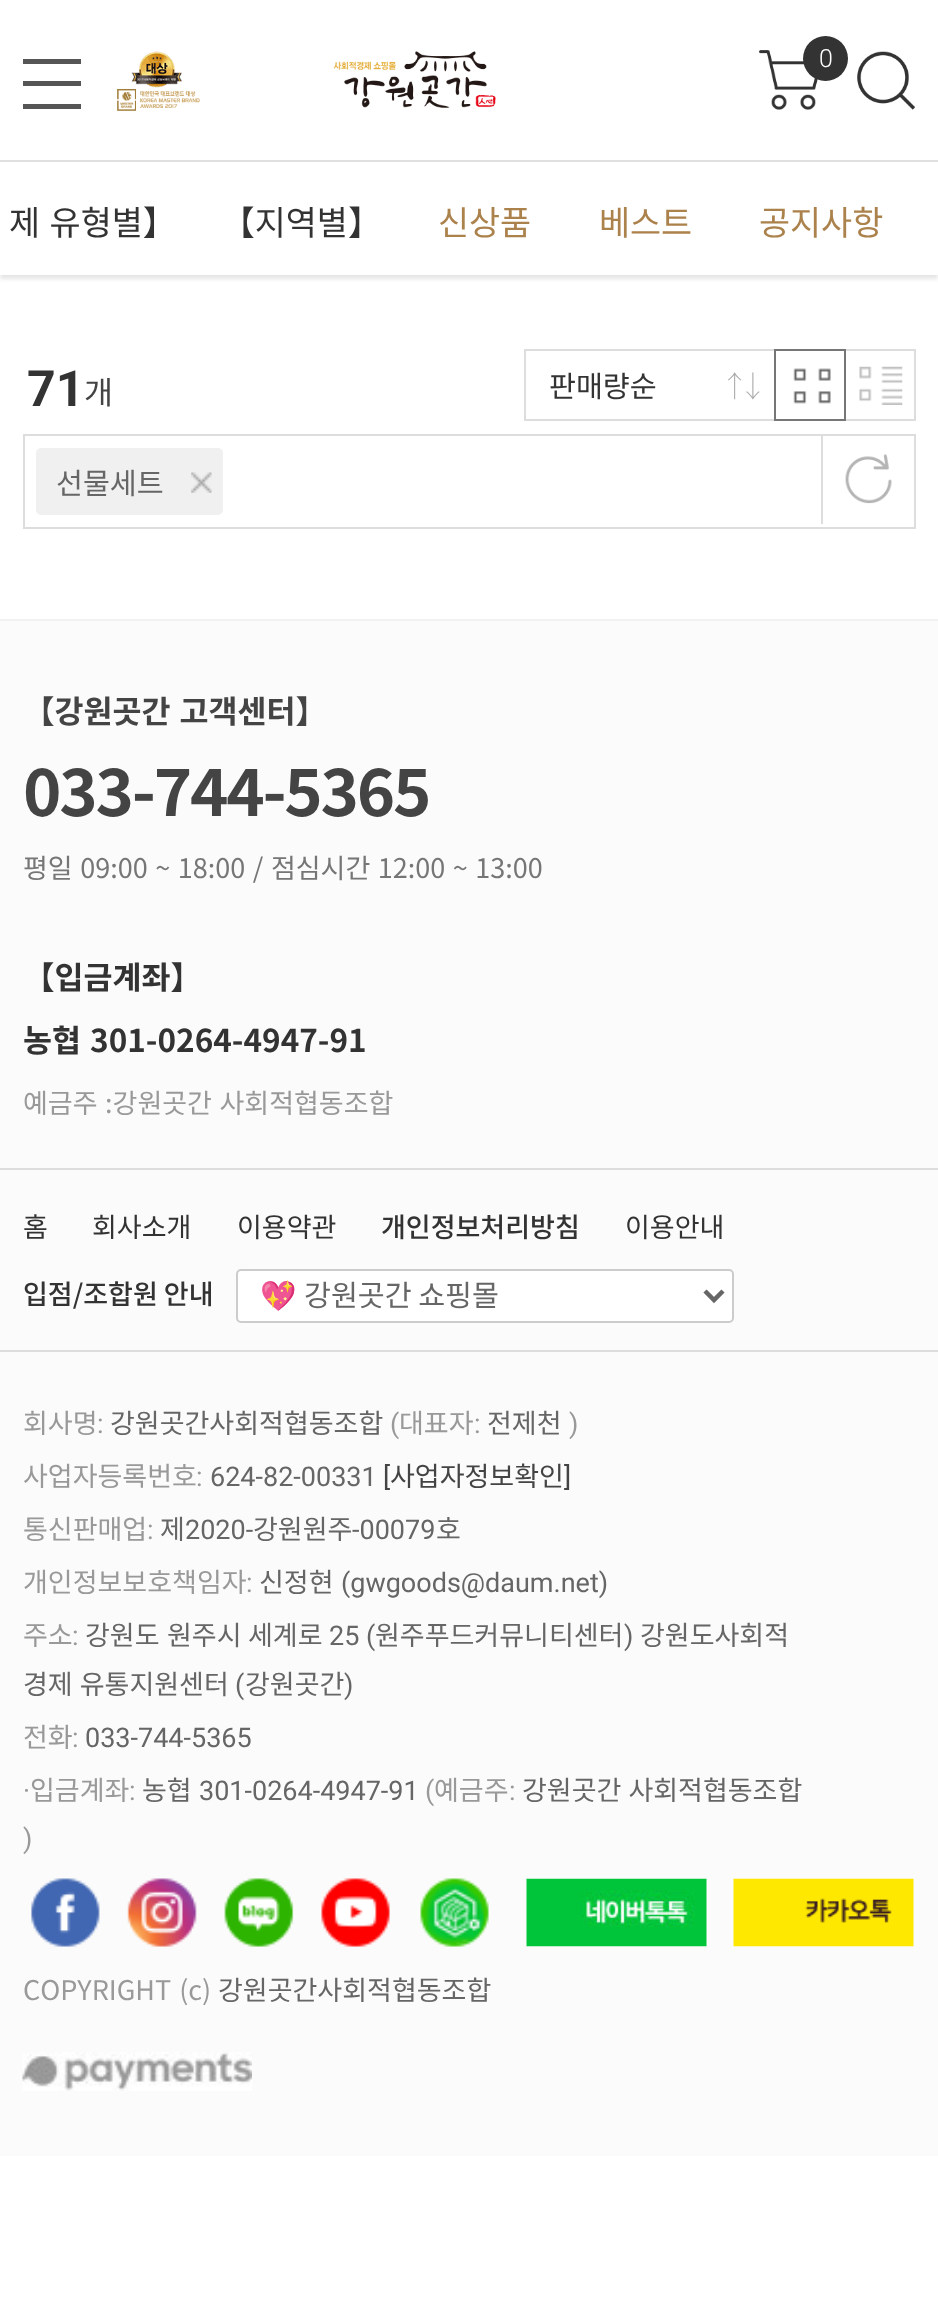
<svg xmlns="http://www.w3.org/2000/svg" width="938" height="2322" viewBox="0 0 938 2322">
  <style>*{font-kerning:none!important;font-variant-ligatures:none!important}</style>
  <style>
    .t1 { font: 300 25px Roboto; fill: #fff; }
    .t2 { font: 33.75px Noto Sans KR; fill: #333; }
    .t3 { font: 33.75px Noto Sans KR; fill: #ac824c; }
    .t4 { font: bold 50px Roboto; fill: #333; }
    .t5 { font: 31.5px Noto Sans KR; fill: #444; }
    .t6 { font: 29.25px Noto Sans KR; fill: #333; }
    .t7 { font: 100 29.25px Noto Sans KR; letter-spacing: -11px; fill: #aaa; }
    .t8 { font: 29.25px Noto Sans KR; fill: #666; }
    .t9 { font: bold 31.5px Noto Sans KR; fill: #444; }
    .t10 { font: bold 65.25px Noto Sans KR; letter-spacing: -2.25px; fill: #444; }
    .t11 { font: 27px Noto Sans KR; fill: #767676; }
    .t12 { font: bold 31.5px Noto Sans KR; fill: #333; }
    .t13 { font: 27px Noto Sans KR; fill: #999; }
    .t14 { font: 27px Noto Sans KR; fill: #333; }
    .t15 { font: 500 27px Noto Sans KR; fill: #333; }
    .t16 { font: 29.25px Noto Color Emoji; fill: #666; }
    .t17 { font: 27px Roboto; fill: #999; }
    .t18 { font: 27px Noto Sans KR; fill: #666; }
    .t19 { font: 27px Roboto; fill: #666; }
    .t20 { font: 27px Roboto; fill: #444; }
    .t21 { font: 27px Noto Sans KR; fill: #444; }
  </style>
  <rect width="100%" height="100%" fill="#fff"/>
  <rect x="0" y="5" width="938" height="274" fill="#0000001a" filter="blur(2px)"/>
  <rect x="0" y="2" width="938" height="273" fill="#fff"/>
  <rect x="23" y="59" width="58" height="5" fill="#555"/>
  <rect x="23" y="81" width="58" height="5" fill="#555"/>
  <rect x="23" y="104" width="58" height="5" fill="#555"/>
  <image x="117" y="51" width="379" height="60" href="images/1.png"/>
  <image x="759" y="50" width="59" height="60" href="images/2.png"/>
  <circle cx="825.5" cy="58.5" r="22.5" fill="#333"/>
  <text x="819" y="67" class="t1">0</text>
  <image x="857" y="51" width="58" height="59" href="images/3.png"/>
  <rect x="0" y="160" width="938" height="2" fill="#e0e0e0"/>
  <text x="9" y="235" word-spacing="2" class="t2">제 유형별】</text>
  <text x="221" y="235" class="t2">【지역별】</text>
  <text x="438" y="235" class="t3">신상품</text>
  <text x="599" y="235" class="t3">베스트</text>
  <text x="759" y="235" class="t3">공지사항</text>
  <rect x="914" y="434" width="2" height="95" fill="#ddd"/>
  <rect x="23" y="527" width="893" height="2" fill="#ddd"/>
  <rect x="23" y="434" width="2" height="95" fill="#ddd"/>
  <rect x="821" y="434" width="2" height="90" fill="#ddd"/>
  <rect x="23" y="434" width="893" height="2" fill="#ddd"/>
  <text x="27" y="406" class="t4">71</text>
  <text x="84" y="404" class="t5">개</text>
  <rect x="524" y="349" width="250" height="2" fill="#ddd"/>
  <rect x="524" y="419" width="250" height="2" fill="#ddd"/>
  <rect x="524" y="349" width="2" height="72" fill="#ddd"/>
  <text x="549" y="397" class="t6">판매량순</text>
  <text x="720" y="397" class="t7">↑↓</text>
  <image x="793" y="368" width="38" height="36" href="images/4.png"/>
  <image x="859" y="366" width="44" height="39" href="images/5.png"/>
  <rect x="845" y="350" width="70" height="70" fill="none" stroke="#ddd" stroke-width="2"/>
  <rect x="775" y="350" width="70" height="70" fill="none" stroke="#767676" stroke-width="2"/>
  <rect x="36" y="448" width="187" height="67" rx="5" fill="#f0f0f0"/>
  <image x="191" y="472" width="21" height="21" href="images/6.png"/>
  <text x="56" y="494" class="t8">선물세트</text>
  <image x="845" y="454" width="47" height="50" href="images/7.png"/>
  <rect x="0" y="621" width="938" height="1535" fill="#fbfbfb"/>
  <rect x="0" y="619" width="938" height="2" fill="#f1f1f1"/>
  <text x="23" y="723" word-spacing="2" class="t9">【강원곳간 고객센터】</text>
  <text x="23" y="816" class="t10">033-744-5365</text>
  <text x="23" y="878" word-spacing="1.5" class="t11">평일 09:00 ~ 18:00 / 점심시간 12:00 ~ 13:00</text>
  <text x="23" y="989" class="t12">【입금계좌】</text>
  <text x="23" y="1052" word-spacing="2" class="t12">농협 301-0264-4947-91</text>
  <text x="23" y="1113" word-spacing="1.5" class="t13">예금주 :강원곳간 사회적협동조합</text>
  <rect x="0" y="1168" width="938" height="2" fill="#ddd"/>
  <rect x="0" y="1350" width="938" height="2" fill="#ddd"/>
  <text x="23" y="1237" class="t14">홈</text>
  <text x="92" y="1237" class="t14">회사소개</text>
  <text x="237" y="1237" class="t14">이용약관</text>
  <text x="381" y="1237" class="t15">개인정보처리방침</text>
  <text x="625" y="1237" class="t14">이용안내</text>
  <text x="23" y="1304" class="t15">입점/조합원 안내</text>
  <rect x="237" y="1270" width="496" height="52" rx="4" fill="#fff" stroke="#ccc" stroke-width="2"/>
  <path d="M705 1291L714 1300L723 1291" fill="none" stroke="#666" stroke-width="4.5"/>
  <text x="260" y="1306" class="t16">💖</text>
  <text x="304" y="1306" class="t8">강원곳간 쇼핑몰</text>
  <text x="23" y="1433" class="t13">회사명</text>
  <text x="97" y="1433" class="t17">:</text>
  <text x="110" y="1433" class="t18">강원곳간사회적협동조합</text>
  <text x="390" y="1433" class="t17">(</text>
  <text x="399" y="1433" class="t13">대표자</text>
  <text x="474" y="1433" class="t17">:</text>
  <text x="487" y="1433" class="t18">전제천</text>
  <text x="569" y="1433" class="t17">)</text>
  <text x="23" y="1486" class="t13">사업자등록번호</text>
  <text x="196" y="1486" class="t17">:</text>
  <text x="210" y="1486" class="t19">624-82-00331</text>
  <text x="383" y="1486" class="t20">[</text>
  <text x="390" y="1486" class="t21">사업자정보확인</text>
  <text x="564" y="1486" class="t20">]</text>
  <text x="23" y="1539" class="t13">통신판매업</text>
  <text x="147" y="1539" class="t17">:</text>
  <text x="160" y="1539" class="t18">제</text>
  <text x="185" y="1539" class="t19">2020-</text>
  <text x="253" y="1539" class="t18">강원원주</text>
  <text x="352" y="1539" class="t19">-00079</text>
  <text x="436" y="1539" class="t18">호</text>
  <text x="23" y="1592" class="t13">개인정보보호책임자</text>
  <text x="246" y="1592" class="t17">:</text>
  <text x="259" y="1592" class="t18">신정현</text>
  <text x="341" y="1592" class="t19">(gwgoods@daum.net)</text>
  <text x="23" y="1645" class="t13">주소</text>
  <text x="72" y="1645" class="t17">:</text>
  <text x="85" y="1645" class="t18">강원도</text>
  <text x="167" y="1645" class="t18">원주시</text>
  <text x="248" y="1645" class="t18">세계로</text>
  <text x="329" y="1645" class="t19">25 (</text>
  <text x="375" y="1645" class="t18">원주푸드커뮤니티센터</text>
  <text x="624" y="1645" class="t19">)</text>
  <text x="640" y="1645" class="t18">강원도사회적</text>
  <text x="23" y="1694" word-spacing="1" class="t18">경제 유통지원센터</text>
  <text x="235" y="1694" class="t19">(</text>
  <text x="245" y="1694" class="t18">강원곳간</text>
  <text x="344" y="1694" class="t19">)</text>
  <text x="23" y="1747" class="t13">전화</text>
  <text x="72" y="1747" class="t17">:</text>
  <text x="85" y="1747" class="t19">033-744-5365</text>
  <text x="23" y="1800" class="t17">·</text>
  <text x="30" y="1800" class="t13">입금계좌</text>
  <text x="129" y="1800" class="t17">:</text>
  <text x="142" y="1800" class="t18">농협</text>
  <text x="199" y="1800" class="t19">301-0264-4947-91</text>
  <text x="425" y="1800" class="t17">(</text>
  <text x="434" y="1800" class="t13">예금주</text>
  <text x="509" y="1800" class="t17">:</text>
  <text x="522" y="1800" word-spacing="1" class="t18">강원곳간 사회적협동조합</text>
  <text x="23" y="1848" class="t17">)</text>
  <image x="31" y="1878" width="69" height="69" href="images/8.png"/>
  <image x="127" y="1878" width="70" height="69" href="images/9.png"/>
  <image x="224" y="1878" width="70" height="69" href="images/10.png"/>
  <image x="321" y="1878" width="69" height="69" href="images/11.png"/>
  <image x="420" y="1878" width="69" height="69" href="images/12.png"/>
  <image x="526" y="1878" width="181" height="69" href="images/13.png"/>
  <image x="733" y="1878" width="181" height="69" href="images/14.png"/>
  <text x="23" y="2000" word-spacing="2" class="t13">COPYRIGHT (c)</text>
  <text x="218" y="2000" class="t18">강원곳간사회적협동조합</text>
  <image x="22" y="2052" width="230" height="39" href="images/15.png"/>
</svg>
